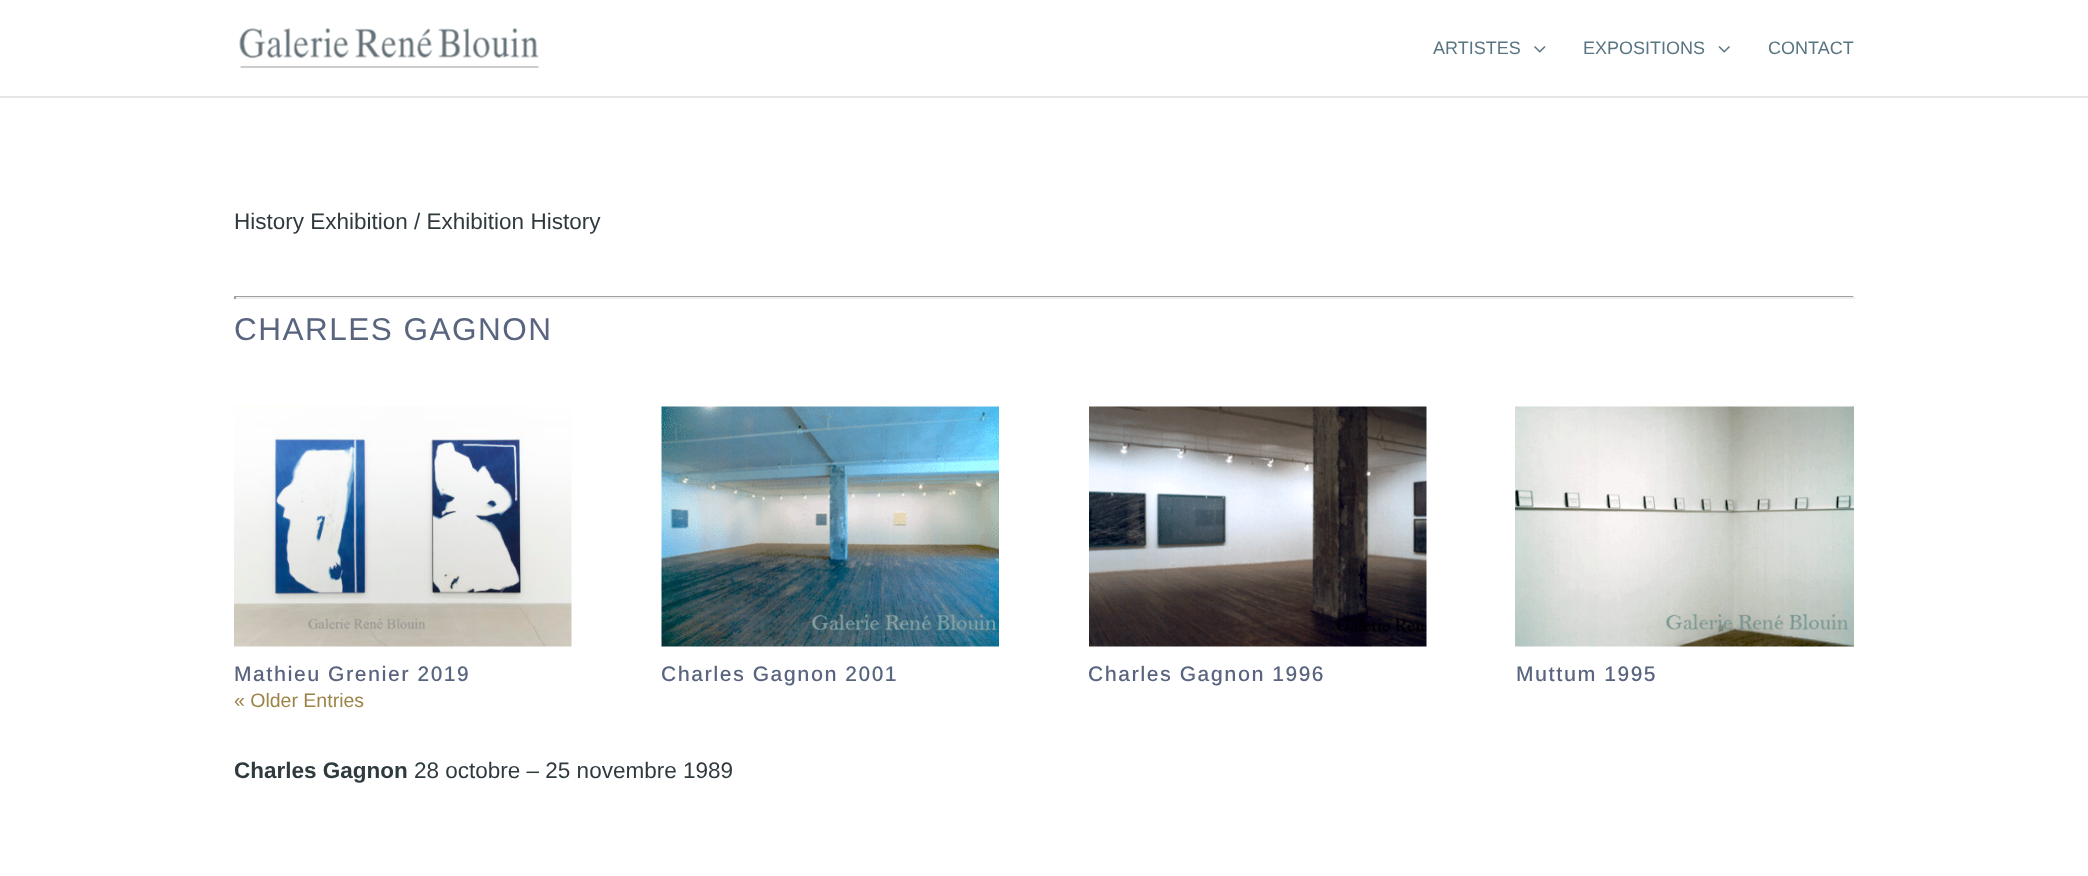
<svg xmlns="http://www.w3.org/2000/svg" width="2088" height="876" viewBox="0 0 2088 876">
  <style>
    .t1 { font: 18px Liberation Sans; fill: #5a7582; }
    .t2 { font: 22.5px Liberation Sans; fill: #2f3a3f; }
    .t3 { font: 31.5px Liberation Sans; letter-spacing: 1.5px; fill: #59657f; }
    .t4 { font: 500 21px Arimo; letter-spacing: 1.5px; fill: #59657f; }
    .t5 { font: 19.5px Liberation Sans; fill: #9c8448; }
    .t6 { font: bold 22.5px Liberation Sans; fill: #2f3a3f; }
  </style>
  <rect width="100%" height="100%" fill="#fff"/>
  <rect x="0" y="96" width="2088" height="2" fill="#e6e6e6"/>
  <image x="239" y="28" width="300" height="40" href="images/1.png"/>
  <text x="1433" y="54" class="t1">ARTISTES</text>
  <image x="1534" y="46" width="12" height="7" href="images/2.png"/>
  <text x="1583" y="54" class="t1">EXPOSITIONS</text>
  <image x="1718" y="46" width="12" height="7" href="images/3.png"/>
  <text x="1768" y="54" class="t1">CONTACT</text>
  <text x="234" y="229" class="t2">History Exhibition / Exhibition History</text>
  <rect x="234" y="296" width="1620" height="1" fill="#9f9f9f"/>
  <rect x="1853" y="296" width="2" height="3" fill="#eee"/>
  <rect x="234" y="297" width="1620" height="2" fill="#eee"/>
  <rect x="234" y="296" width="2" height="3" fill="#9f9f9f"/>
  <text x="234" y="340" class="t3">CHARLES GAGNON</text>
  <image x="234" y="406" width="338" height="241" href="images/4.png"/>
  <text x="234" y="681" class="t4">Mathieu Grenier 2019</text>
  <image x="661" y="406" width="338" height="241" href="images/5.png"/>
  <text x="661" y="681" class="t4">Charles Gagnon 2001</text>
  <image x="1089" y="406" width="338" height="241" href="images/6.png"/>
  <text x="1088" y="681" class="t4">Charles Gagnon 1996</text>
  <image x="1515" y="406" width="339" height="241" href="images/7.png"/>
  <text x="1516" y="681" class="t4">Muttum 1995</text>
  <text x="234" y="707" class="t5">« Older Entries</text>
  <text x="234" y="778" class="t6">Charles Gagnon</text>
  <text x="414" y="778" class="t2">28 octobre – 25 novembre 1989</text>
</svg>
